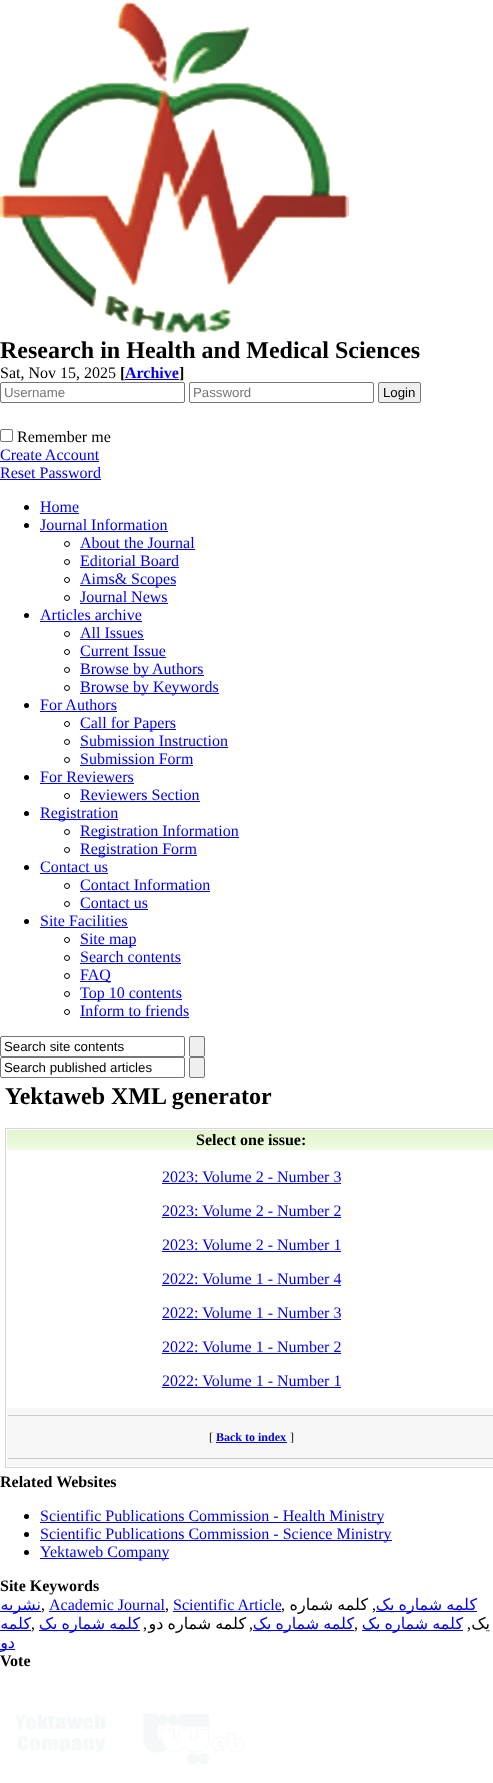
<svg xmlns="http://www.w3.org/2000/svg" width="493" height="1783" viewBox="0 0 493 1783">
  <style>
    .t1 { font: bold 24px Liberation Serif; fill: #000; }
    .t2 { font: 16px Liberation Serif; fill: #000; }
    .t3 { font: bold 16px Liberation Serif; fill: #000; }
    .t4 { font: bold 16px Liberation Serif; fill: #00e; }
    .t5 { font: 13.25px Liberation Sans; fill: #757575; }
    .t6 { font: 13.25px Liberation Sans; fill: #000; }
    .t7 { font: 16px Liberation Serif; fill: #00e; }
    .t8 { font: 12px Liberation Serif; fill: #000; }
    .t9 { font: bold 12px Liberation Serif; fill: #00e; }
    .t10 { font: 16px DejaVu Sans; direction: rtl; fill: #00e; }
    .t11 { font: 16px DejaVu Sans; direction: rtl; fill: #000; }
    .t12 { font: 16px Liberation Serif; direction: rtl; fill: #000; }
  </style>
  <rect width="100%" height="100%" fill="#fff"/>
  <image x="0" y="1" width="349" height="333" href="images/1.png"/>
  <text x="0" y="358" class="t1">Research in Health and Medical Sciences</text>
  <text x="0" y="378" class="t2">Sat, Nov 15, 2025</text>
  <text x="120" y="378" class="t3">[</text>
  <rect x="125" y="379" width="54" height="1" fill="#00e"/>
  <text x="125" y="378" class="t4">Archive</text>
  <text x="179" y="378" class="t3">]</text>
  <rect x="0.5" y="382.5" width="184" height="20" rx="1.5" fill="none" stroke="#767676"/>
  <text x="4" y="397" class="t5">Username</text>
  <rect x="189.5" y="382.5" width="184" height="20" rx="1.5" fill="none" stroke="#767676"/>
  <text x="193" y="397" class="t5">Password</text>
  <rect x="378.5" y="382.5" width="42" height="20" rx="1.5" fill="#efefef" stroke="#767676"/>
  <text x="383" y="397" class="t6">Login</text>
  <rect x="0.5" y="429.5" width="12" height="12" rx="1.5" fill="none" stroke="#767676"/>
  <text x="17" y="442" class="t2">Remember me</text>
  <text x="0" y="460" class="t7">Create Account</text>
  <rect x="0" y="461" width="99" height="1" fill="#00e"/>
  <text x="0" y="478" class="t7">Reset Password</text>
  <rect x="0" y="479" width="101" height="1" fill="#00e"/>
  <circle cx="26.5" cy="507.5" r="2.5" fill="#000"/>
  <text x="40" y="512" class="t7">Home</text>
  <rect x="40" y="513" width="39" height="1" fill="#00e"/>
  <circle cx="26.5" cy="525.5" r="2.5" fill="#000"/>
  <text x="40" y="530" class="t7">Journal Information</text>
  <rect x="40" y="531" width="128" height="1" fill="#00e"/>
  <circle cx="67" cy="544" r="2.5" fill="none" stroke="#000"/>
  <text x="80" y="548" class="t7">About the Journal</text>
  <rect x="80" y="549" width="115" height="1" fill="#00e"/>
  <circle cx="67" cy="562" r="2.5" fill="none" stroke="#000"/>
  <text x="80" y="566" class="t7">Editorial Board</text>
  <rect x="80" y="567" width="99" height="1" fill="#00e"/>
  <circle cx="67" cy="580" r="2.5" fill="none" stroke="#000"/>
  <rect x="80" y="585" width="96" height="1" fill="#00e"/>
  <text x="80" y="584" class="t7">Aims&amp; Scopes</text>
  <circle cx="67" cy="598" r="2.5" fill="none" stroke="#000"/>
  <text x="80" y="602" class="t7">Journal News</text>
  <rect x="80" y="603" width="88" height="1" fill="#00e"/>
  <circle cx="26.5" cy="615.5" r="2.5" fill="#000"/>
  <text x="40" y="620" class="t7">Articles archive</text>
  <rect x="40" y="621" width="102" height="1" fill="#00e"/>
  <circle cx="67" cy="634" r="2.5" fill="none" stroke="#000"/>
  <text x="80" y="638" class="t7">All Issues</text>
  <rect x="80" y="639" width="64" height="1" fill="#00e"/>
  <circle cx="67" cy="652" r="2.5" fill="none" stroke="#000"/>
  <text x="80" y="656" class="t7">Current Issue</text>
  <rect x="80" y="657" width="86" height="1" fill="#00e"/>
  <circle cx="67" cy="670" r="2.5" fill="none" stroke="#000"/>
  <rect x="80" y="675" width="124" height="1" fill="#00e"/>
  <text x="80" y="674" class="t7">Browse by Authors</text>
  <circle cx="67" cy="688" r="2.5" fill="none" stroke="#000"/>
  <rect x="80" y="693" width="139" height="1" fill="#00e"/>
  <text x="80" y="692" class="t7">Browse by Keywords</text>
  <circle cx="26.5" cy="705.5" r="2.5" fill="#000"/>
  <text x="40" y="710" class="t7">For Authors</text>
  <rect x="40" y="711" width="77" height="1" fill="#00e"/>
  <circle cx="67" cy="724" r="2.5" fill="none" stroke="#000"/>
  <rect x="80" y="729" width="96" height="1" fill="#00e"/>
  <text x="80" y="728" class="t7">Call for Papers</text>
  <circle cx="67" cy="742" r="2.5" fill="none" stroke="#000"/>
  <text x="80" y="746" class="t7">Submission Instruction</text>
  <rect x="80" y="747" width="148" height="1" fill="#00e"/>
  <circle cx="67" cy="760" r="2.5" fill="none" stroke="#000"/>
  <text x="80" y="764" class="t7">Submission Form</text>
  <rect x="80" y="765" width="113" height="1" fill="#00e"/>
  <circle cx="26.5" cy="777.5" r="2.5" fill="#000"/>
  <text x="40" y="782" class="t7">For Reviewers</text>
  <rect x="40" y="783" width="94" height="1" fill="#00e"/>
  <circle cx="67" cy="796" r="2.5" fill="none" stroke="#000"/>
  <text x="80" y="800" class="t7">Reviewers Section</text>
  <rect x="80" y="801" width="120" height="1" fill="#00e"/>
  <circle cx="26.5" cy="813.5" r="2.5" fill="#000"/>
  <rect x="40" y="819" width="78" height="1" fill="#00e"/>
  <text x="40" y="818" class="t7">Registration</text>
  <circle cx="67" cy="832" r="2.5" fill="none" stroke="#000"/>
  <rect x="80" y="837" width="159" height="1" fill="#00e"/>
  <text x="80" y="836" class="t7">Registration Information</text>
  <circle cx="67" cy="850" r="2.5" fill="none" stroke="#000"/>
  <rect x="80" y="855" width="117" height="1" fill="#00e"/>
  <text x="80" y="854" class="t7">Registration Form</text>
  <circle cx="26.5" cy="867.5" r="2.5" fill="#000"/>
  <text x="40" y="872" class="t7">Contact us</text>
  <rect x="40" y="873" width="68" height="1" fill="#00e"/>
  <circle cx="67" cy="886" r="2.5" fill="none" stroke="#000"/>
  <text x="80" y="890" class="t7">Contact Information</text>
  <rect x="80" y="891" width="130" height="1" fill="#00e"/>
  <circle cx="67" cy="904" r="2.5" fill="none" stroke="#000"/>
  <text x="80" y="908" class="t7">Contact us</text>
  <rect x="80" y="909" width="68" height="1" fill="#00e"/>
  <circle cx="26.5" cy="921.5" r="2.5" fill="#000"/>
  <text x="40" y="926" class="t7">Site Facilities</text>
  <rect x="40" y="927" width="88" height="1" fill="#00e"/>
  <circle cx="67" cy="940" r="2.5" fill="none" stroke="#000"/>
  <rect x="80" y="945" width="56" height="1" fill="#00e"/>
  <text x="80" y="944" class="t7">Site map</text>
  <circle cx="67" cy="958" r="2.5" fill="none" stroke="#000"/>
  <text x="80" y="962" class="t7">Search contents</text>
  <rect x="80" y="963" width="101" height="1" fill="#00e"/>
  <circle cx="67" cy="976" r="2.5" fill="none" stroke="#000"/>
  <rect x="80" y="981" width="31" height="1" fill="#00e"/>
  <text x="80" y="980" class="t7">FAQ</text>
  <circle cx="67" cy="994" r="2.5" fill="none" stroke="#000"/>
  <rect x="80" y="999" width="102" height="1" fill="#00e"/>
  <text x="80" y="998" class="t7">Top 10 contents</text>
  <circle cx="67" cy="1012" r="2.5" fill="none" stroke="#000"/>
  <text x="80" y="1016" class="t7">Inform to friends</text>
  <rect x="80" y="1017" width="109" height="1" fill="#00e"/>
  <rect x="0.5" y="1036.5" width="184" height="20" rx="1.5" fill="none" stroke="#767676"/>
  <text x="4" y="1051" class="t6">Search site contents</text>
  <rect x="189.5" y="1036.5" width="15" height="20" rx="1.5" fill="#efefef" stroke="#767676"/>
  <rect x="0.5" y="1057.5" width="184" height="20" rx="1.5" fill="none" stroke="#767676"/>
  <text x="4" y="1072" class="t6">Search published articles</text>
  <rect x="189.5" y="1057.5" width="15" height="20" rx="1.5" fill="#efefef" stroke="#767676"/>
  <text x="5" y="1104" class="t1">Yektaweb XML generator</text>
  <rect x="5.5" y="1128.5" width="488" height="339" fill="none" stroke="#d7d6d6"/>
  <image x="7" y="1130" width="486" height="20" href="images/2.png"/>
  <text x="196" y="1145" class="t3">Select one issue:</text>
  <text x="162" y="1182" class="t7">2023: Volume 2 - Number 3</text>
  <rect x="162" y="1183" width="179" height="1" fill="#00e"/>
  <text x="162" y="1216" class="t7">2023: Volume 2 - Number 2</text>
  <rect x="162" y="1217" width="179" height="1" fill="#00e"/>
  <text x="162" y="1250" class="t7">2023: Volume 2 - Number 1</text>
  <rect x="162" y="1251" width="179" height="1" fill="#00e"/>
  <text x="162" y="1284" class="t7">2022: Volume 1 - Number 4</text>
  <rect x="162" y="1285" width="179" height="1" fill="#00e"/>
  <text x="162" y="1318" class="t7">2022: Volume 1 - Number 3</text>
  <rect x="162" y="1319" width="179" height="1" fill="#00e"/>
  <text x="162" y="1352" class="t7">2022: Volume 1 - Number 2</text>
  <rect x="162" y="1353" width="179" height="1" fill="#00e"/>
  <text x="162" y="1386" class="t7">2022: Volume 1 - Number 1</text>
  <rect x="162" y="1387" width="179" height="1" fill="#00e"/>
  <rect x="7" y="1408" width="486" height="58" fill="#f7f7f7"/>
  <rect x="8" y="1415" width="485" height="1" fill="#ccc"/>
  <text x="209" y="1441" class="t8">[</text>
  <text x="216" y="1441" class="t9">Back to index</text>
  <rect x="216" y="1442" width="71" height="1" fill="#00e"/>
  <text x="290" y="1441" class="t8">]</text>
  <rect x="8" y="1458" width="485" height="1" fill="#ccc"/>
  <text x="0" y="1487" class="t3">Related Websites</text>
  <circle cx="26.5" cy="1516.5" r="2.5" fill="#000"/>
  <rect x="40" y="1522" width="344" height="1" fill="#00e"/>
  <text x="40" y="1521" class="t7">Scientific Publications Commission - Health Ministry</text>
  <circle cx="26.5" cy="1534.5" r="2.5" fill="#000"/>
  <rect x="40" y="1540" width="352" height="1" fill="#00e"/>
  <text x="40" y="1539" class="t7">Scientific Publications Commission - Science Ministry</text>
  <circle cx="26.5" cy="1552.5" r="2.5" fill="#000"/>
  <rect x="40" y="1558" width="129" height="1" fill="#00e"/>
  <text x="40" y="1557" class="t7">Yektaweb Company</text>
  <text x="0" y="1591" class="t3">Site Keywords</text>
  <rect x="0" y="1611" width="41" height="1" fill="#00e"/>
  <text x="41" y="1610" class="t10">نشریه</text>
  <text x="41" y="1610" class="t2">,</text>
  <text x="49" y="1610" class="t7">Academic Journal</text>
  <rect x="49" y="1611" width="116" height="1" fill="#00e"/>
  <text x="165" y="1610" class="t2">,</text>
  <text x="173" y="1610" class="t7">Scientific Article</text>
  <rect x="173" y="1611" width="108" height="1" fill="#00e"/>
  <text x="281" y="1610" class="t2">,</text>
  <text x="368" y="1610" word-spacing="-1" class="t11">کلمه شماره</text>
  <text x="376" y="1610" class="t12">,</text>
  <rect x="376" y="1611" width="101" height="1" fill="#00e"/>
  <text x="477" y="1610" word-spacing="-1" class="t10">کلمه شماره یک</text>
  <text x="31" y="1629" class="t10">کلمه</text>
  <rect x="0" y="1630" width="31" height="1" fill="#00e"/>
  <text x="31" y="1629" class="t2">,</text>
  <rect x="39" y="1630" width="101" height="1" fill="#00e"/>
  <text x="140" y="1629" word-spacing="-1" class="t10">کلمه شماره یک</text>
  <text x="147" y="1629" class="t12">,</text>
  <text x="246" y="1629" word-spacing="-1" class="t11">کلمه شماره دو</text>
  <text x="253" y="1629" class="t12">,</text>
  <rect x="253" y="1630" width="101" height="1" fill="#00e"/>
  <text x="354" y="1629" class="t2">,</text>
  <text x="354" y="1629" word-spacing="-1" class="t10">کلمه شماره یک</text>
  <rect x="362" y="1630" width="101" height="1" fill="#00e"/>
  <text x="463" y="1629" word-spacing="-1" class="t10">کلمه شماره یک</text>
  <text x="471" y="1629" class="t12">,</text>
  <text x="490" y="1629" class="t11">یک</text>
  <rect x="0" y="1649" width="15" height="1" fill="#00e"/>
  <text x="15" y="1648" class="t10">دو</text>
  <text x="0" y="1666" class="t3">Vote</text>
  <image x="15" y="1713" width="229" height="51" href="images/3.png"/>
</svg>
